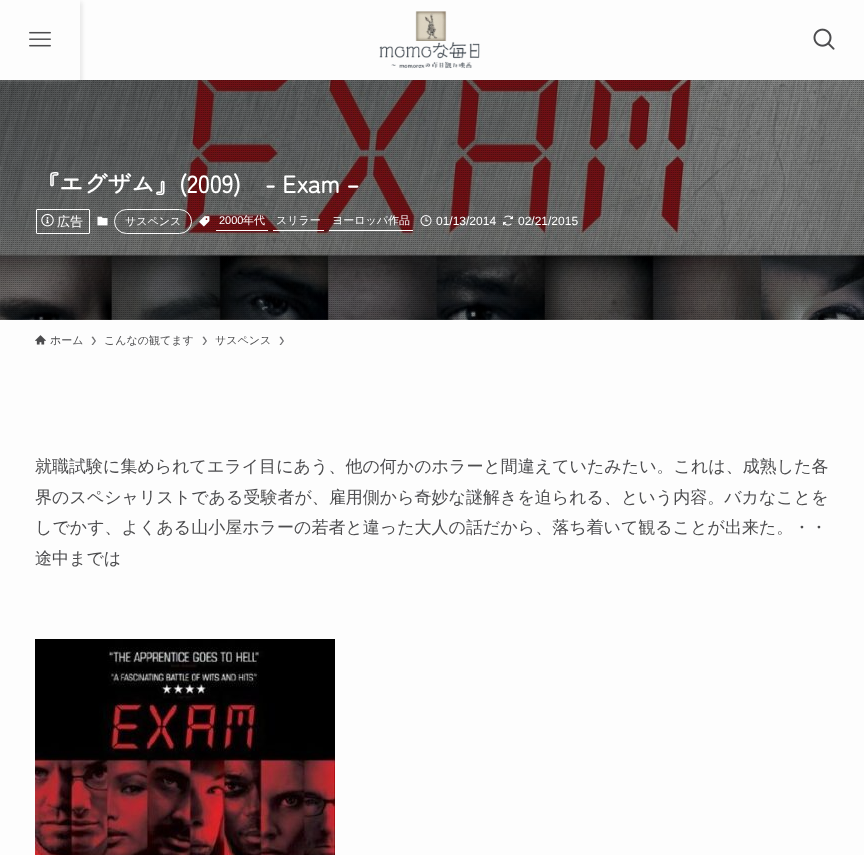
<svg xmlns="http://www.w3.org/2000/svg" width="864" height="855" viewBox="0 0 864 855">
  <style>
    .t1 { font: bold 24px Zen Maru Gothic; fill: #fff; }
    .t2 { font: 500 13px WenQuanYi Zen Hei; fill: #fff; }
    .t3 { font: 500 11px WenQuanYi Zen Hei; fill: #fff; }
    .t4 { font: 11px Liberation Sans; fill: #fff; }
    .t5 { font: 12px Liberation Sans; fill: #fff; }
    .t6 { font: 500 11px WenQuanYi Zen Hei; fill: #4c4c4e; }
    .t7 { font: 500 17px WenQuanYi Zen Hei; fill: #4c4c4e; }
  </style>
  <defs>
    <clipPath id="clip1"><path d="M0 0H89V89H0ZM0 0H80V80H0Z" clip-rule="evenodd"/></clipPath>
    <clipPath id="clip2"><path d="M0 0H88V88H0ZM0 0H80V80H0Z" clip-rule="evenodd"/></clipPath>
  </defs>
  <rect width="100%" height="100%" fill="#fdfdfd"/>
  <image x="0" y="80" width="864" height="240" href="images/4.png"/>
  <image x="0" y="80" width="864" height="240" href="images/5.png"/>
  <g clip-path="url(#clip1)">
    <rect x="2" y="2" width="80" height="80" fill="#0000001a" filter="blur(2px)"/>
  </g>
  <g clip-path="url(#clip2)">
    <rect x="-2" y="-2" width="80" height="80" fill="#ffffff99" filter="blur(3px)"/>
  </g>
  <image x="29" y="31" width="22" height="16" href="images/1.png"/>
  <image x="379" y="11" width="101" height="58" href="images/2.png"/>
  <image x="813" y="28" width="22" height="22" href="images/3.png"/>
  <text x="35" y="193" class="t1">『エグザム』(2009)　- Exam –</text>
  <rect x="36.5" y="209.5" width="53" height="24" rx="0.5" fill="none" stroke="#fff"/>
  <image x="41" y="213" width="13" height="14" href="images/6.png"/>
  <text x="57" y="226" class="t2">広告</text>
  <image x="97" y="216" width="11" height="10" href="images/7.png"/>
  <rect x="114.5" y="209.5" width="77" height="24" rx="12" fill="none" stroke="#fff"/>
  <text x="125" y="225" class="t3">サスペンス</text>
  <image x="199" y="216" width="11" height="11" href="images/8.png"/>
  <rect x="216" y="230" width="52" height="1" fill="#fff"/>
  <text x="219" y="224" class="t4">2000</text>
  <text x="243" y="224" class="t3">年代</text>
  <rect x="273" y="230" width="51" height="1" fill="#fff"/>
  <text x="276" y="224" class="t3">スリラー</text>
  <rect x="329" y="230" width="84" height="1" fill="#fff"/>
  <text x="332" y="224" class="t3">ヨーロッパ作品</text>
  <image x="420" y="215" width="12" height="12" href="images/9.png"/>
  <text x="436" y="225" class="t5">01/13/2014</text>
  <image x="503" y="215" width="10" height="11" href="images/10.png"/>
  <text x="518" y="225" class="t5">02/21/2015</text>
  <image x="35" y="335" width="11" height="10" href="images/11.png"/>
  <text x="50" y="344" class="t6">ホーム</text>
  <path d="M93 336.5L91.5 337L94.5 341L91.5 345H93L96 341Z" fill="#6f6f71"/>
  <text x="104" y="344" class="t6">こんなの観てます</text>
  <path d="M204 336.5L202.5 337L205.5 341L202.5 345H204L207 341Z" fill="#6f6f71"/>
  <text x="215" y="344" class="t6">サスペンス</text>
  <path d="M281 336.5L279.5 337L282.5 341L279.5 345H281L284 341Z" fill="#6f6f71"/>
  <text x="35" y="472" class="t7">就職試験に集められてエライ目にあう、他の何かのホラーと間違えていたみたい。これは、成熟した各</text>
  <text x="35" y="503" class="t7">界のスペシャリストである受験者が、雇用側から奇妙な謎解きを迫られる、という内容。バカなことを</text>
  <text x="35" y="533" class="t7">しでかす、よくある山小屋ホラーの若者と違った大人の話だから、落ち着いて観ることが出来た。・・</text>
  <text x="35" y="564" class="t7">途中までは</text>
  <image x="35" y="639" width="300" height="216" href="images/12.png"/>
</svg>
